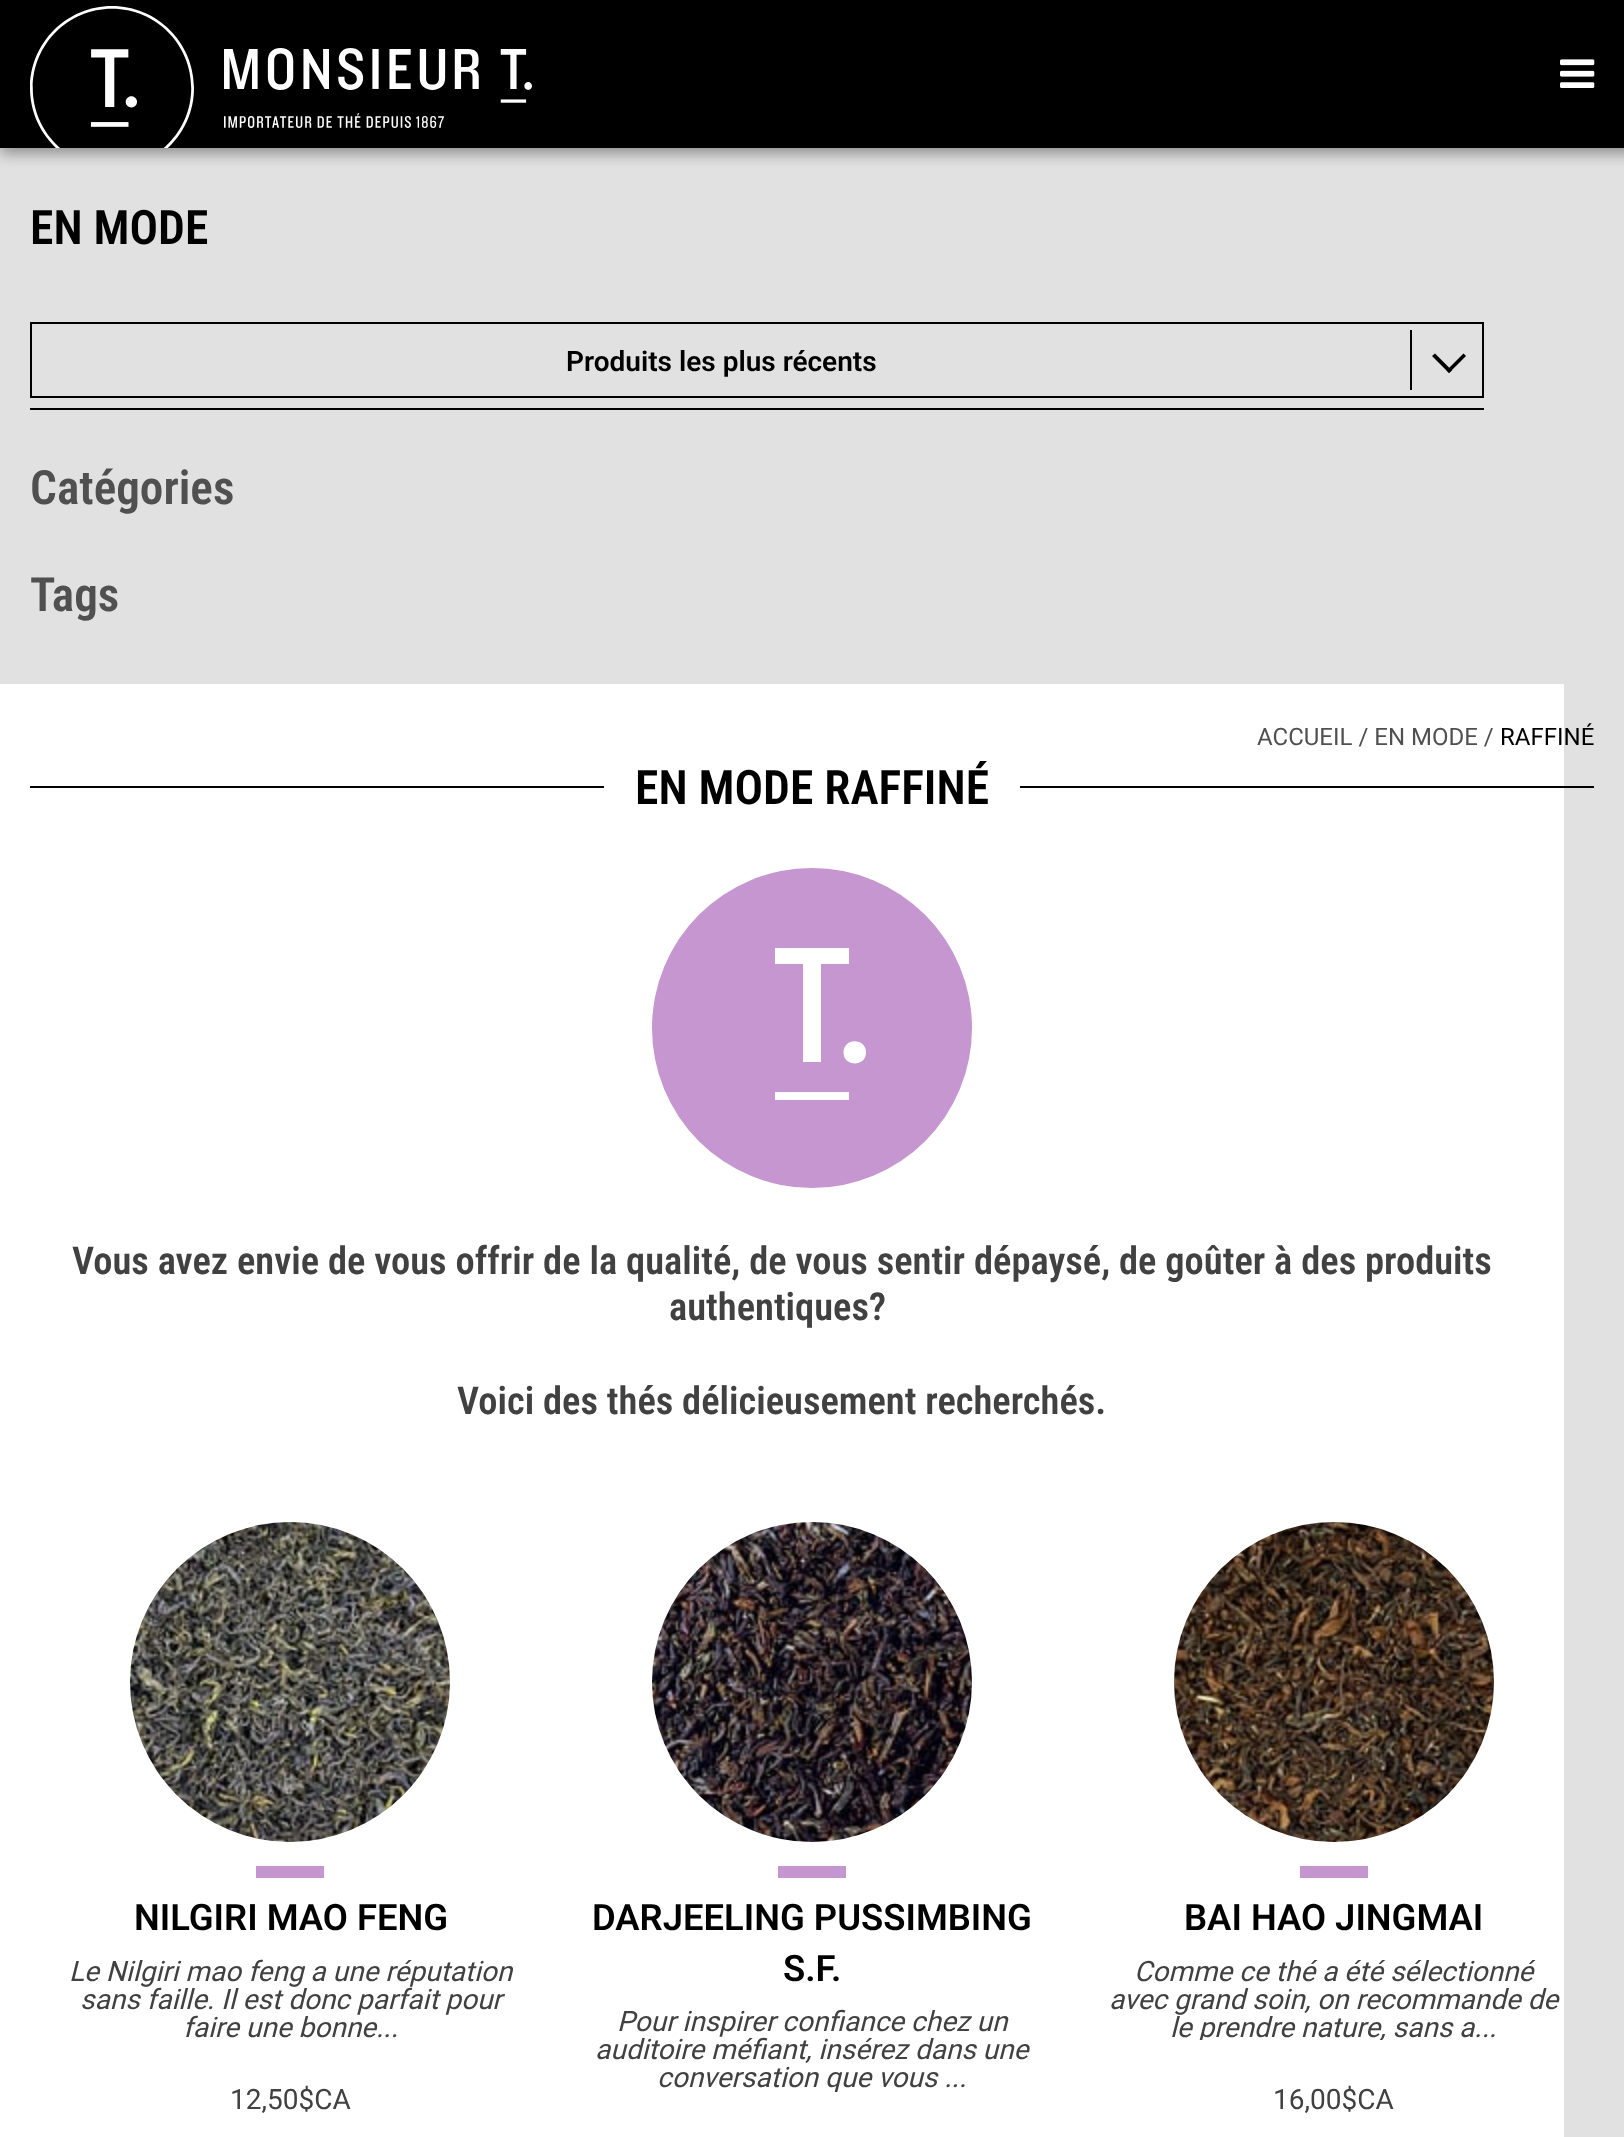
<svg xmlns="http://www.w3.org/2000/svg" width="1624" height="2137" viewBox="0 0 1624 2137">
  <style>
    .t1 { font: 600 47.5px Roboto Condensed; fill: #000; }
    .t2 { font: 600 28px Roboto; fill: #000; }
    .t3 { font: 600 47.25px Roboto Condensed; fill: #505050; }
    .t4 { font: 24px Roboto; fill: #505050; }
    .t5 { font: 24px Roboto; fill: #000; }
    .t6 { font: 600 38.5px Roboto Condensed; fill: #414141; }
    .t7 { font: 600 36.4px Roboto; fill: #000; }
    .t8 { font: italic 28px Roboto; fill: #414141; }
    .t9 { font: 28px Roboto; fill: #414141; }
  </style>
  <defs>
    <clipPath id="clip1"><rect x="582" y="2008" width="460" height="84"/></clipPath>
    <clipPath id="clip2"><rect x="1102" y="1956" width="462" height="84"/></clipPath>
  </defs>
  <rect width="100%" height="100%" fill="#e1e1e1"/>
  <rect x="0" y="-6" width="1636" height="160" fill="#00000059" filter="blur(7px)"/>
  <rect x="0" y="0" width="1624" height="148" fill="#000"/>
  <image x="30" y="6" width="164" height="142" href="images/1.png"/>
  <image x="224" y="48" width="308" height="80" href="images/2.png"/>
  <image x="1560" y="59" width="35" height="29" href="images/3.png"/>
  <text x="30" y="244" class="t1">EN MODE</text>
  <rect x="30" y="408" width="1454" height="2" fill="#000"/>
  <rect x="31" y="323" width="1452" height="74" fill="none" stroke="#000" stroke-width="2"/>
  <text x="566" y="371" class="t2">Produits les plus récents</text>
  <rect x="1410" y="330" width="2" height="60" fill="#000"/>
  <path d="M1466 356L1449 373L1446.5 370.5L1463.5 353.5Z" fill="#000"/>
  <path d="M1452 370.5L1449 373L1432 356L1435 353.5Z" fill="#000"/>
  <text x="30" y="504" class="t3">Catégories</text>
  <text x="30" y="611" class="t3">Tags</text>
  <rect x="0" y="684" width="1564" height="1453" fill="#fff"/>
  <text x="1257" y="745" class="t4">ACCUEIL / EN MODE /</text>
  <text x="1500" y="745" class="t5">RAFFINÉ</text>
  <rect x="30" y="786" width="574" height="2" fill="#000"/>
  <text x="635" y="804" class="t1">EN MODE RAFFINÉ</text>
  <rect x="1020" y="786" width="574" height="2" fill="#000"/>
  <circle cx="812" cy="1028" r="160" fill="#c596d0"/>
  <path d="M821 964V1062H803V964H775V948H849V964Z" fill="#fff"/>
  <rect x="775" y="1092" width="74" height="8" fill="#fff"/>
  <path d="M866 1052.5C866 1067 843.5 1067 843.5 1052.5C843.5 1037.5 866 1037.5 866 1052.5" fill="#fff"/>
  <text x="72" y="1274" class="t6">Vous avez envie de vous offrir de la qualité, de vous sentir dépaysé, de goûter à des produits</text>
  <text x="669" y="1320" class="t6">authentiques?</text>
  <text x="457" y="1414" class="t6">Voici des thés délicieusement recherchés.</text>
  <image x="130" y="1522" width="320" height="320" href="images/4.png"/>
  <rect x="256" y="1866" width="68" height="12" fill="#c596d0"/>
  <text x="134" y="1930" class="t7">NILGIRI MAO FENG</text>
  <text x="69" y="1981" class="t8">Le Nilgiri mao feng a une réputation</text>
  <text x="80" y="2009" class="t8">sans faille. Il est donc parfait pour</text>
  <text x="183" y="2037" class="t8">faire une bonne...</text>
  <text x="230" y="2109" class="t9">12,50$CA</text>
  <image x="652" y="1522" width="320" height="320" href="images/5.png"/>
  <rect x="778" y="1866" width="68" height="12" fill="#c596d0"/>
  <text x="592" y="1930" class="t7">DARJEELING PUSSIMBING</text>
  <text x="783" y="1981" class="t7">S.F.</text>
  <text x="617" y="2031" class="t8">Pour inspirer confiance chez un</text>
  <text x="595" y="2059" class="t8">auditoire méfiant, insérez dans une</text>
  <g clip-path="url(#clip1)">
    <text x="657" y="2087" class="t8">conversation que vous ...</text>
  </g>
  <image x="1174" y="1522" width="320" height="320" href="images/6.png"/>
  <rect x="1300" y="1866" width="68" height="12" fill="#c596d0"/>
  <text x="1184" y="1930" class="t7">BAI HAO JINGMAI</text>
  <text x="1134" y="1981" class="t8">Comme ce thé a été sélectionné</text>
  <text x="1109" y="2009" class="t8">avec grand soin, on recommande de</text>
  <g clip-path="url(#clip2)">
    <text x="1170" y="2037" class="t8">le prendre nature, sans a...</text>
  </g>
  <text x="1273" y="2109" class="t9">16,00$CA</text>
</svg>
